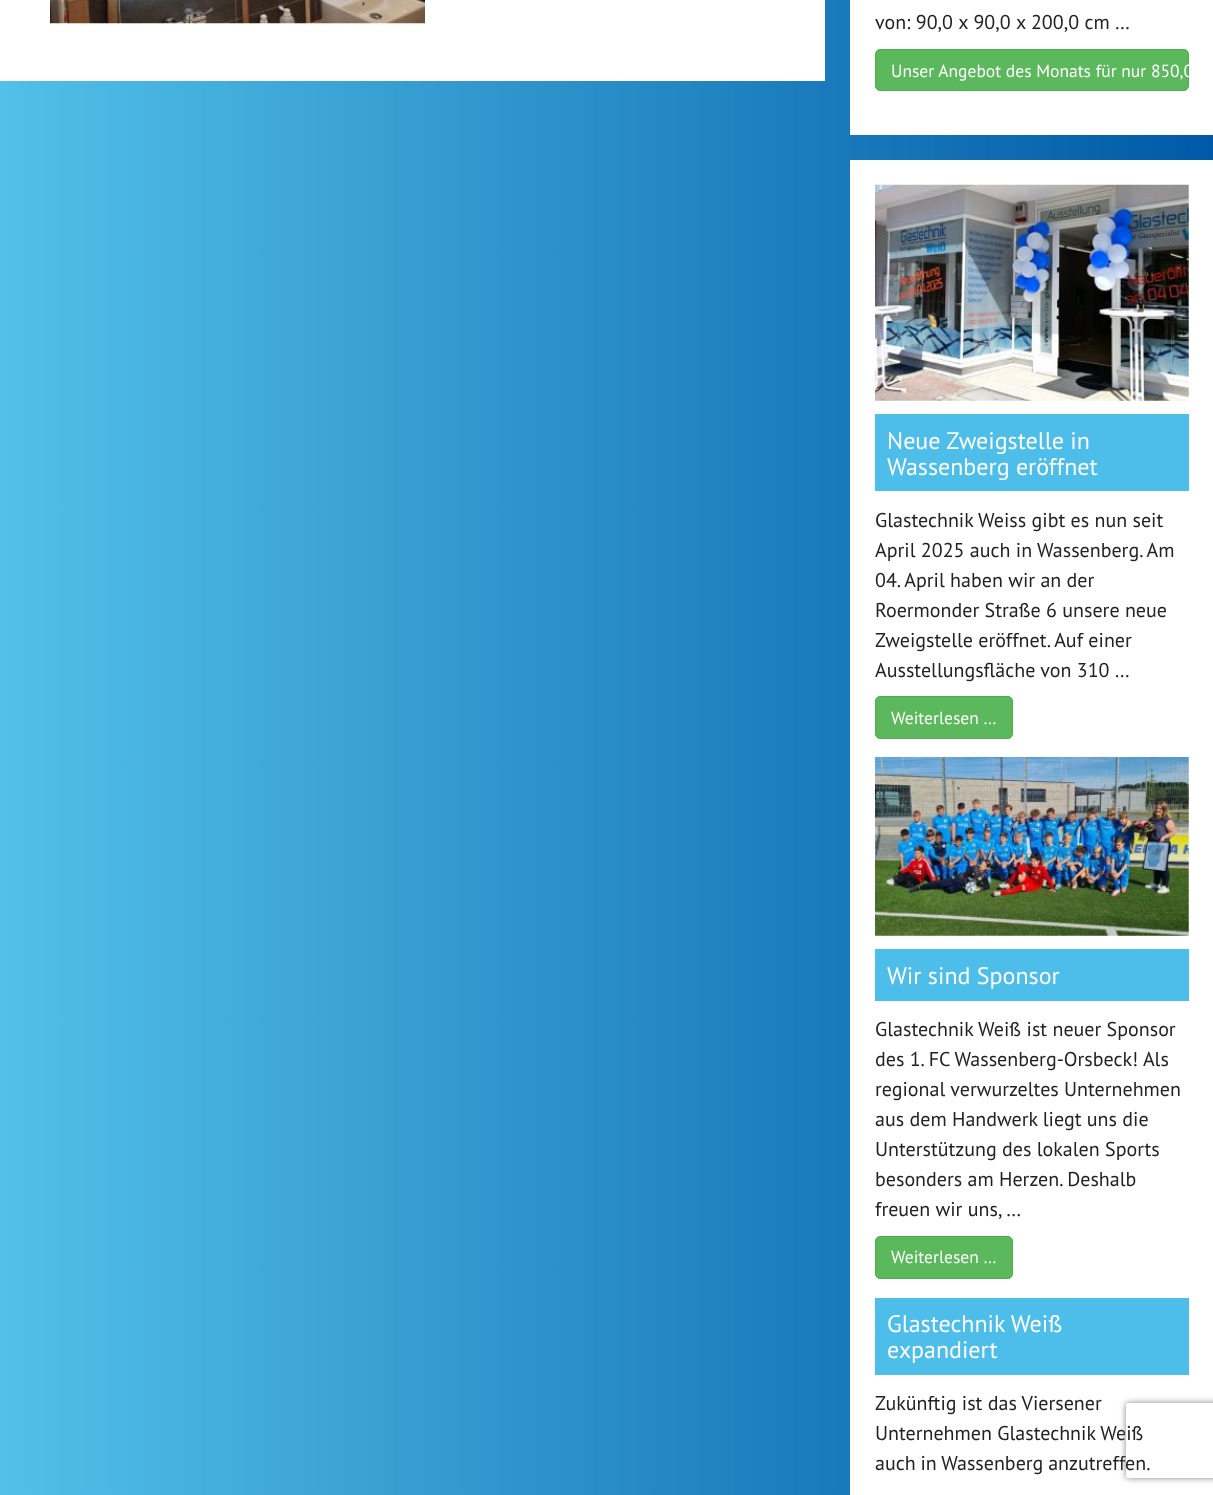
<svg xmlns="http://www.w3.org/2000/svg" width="1213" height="1495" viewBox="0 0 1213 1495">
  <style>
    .t1 { font: 20px PT Sans; fill: #222; }
    .t2 { font: 17.5px PT Sans; fill: #fff; }
    .t3 { font: 24px PT Sans; fill: #fff; }
  </style>
  <defs>
    <linearGradient id="g1" gradientUnits="userSpaceOnUse" x1="0" y1="744" x2="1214" y2="744"><stop offset="0" stop-color="#52c0e8"/><stop offset="1" stop-color="#0059a6"/></linearGradient>
    <clipPath id="clip1"><path d="M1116 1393H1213V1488H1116ZM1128.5 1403H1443.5C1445 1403 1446 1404 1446 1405.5V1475.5C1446 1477 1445 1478 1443.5 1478H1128.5C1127 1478 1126 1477 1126 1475.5V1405.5C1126 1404 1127 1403 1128.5 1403Z" clip-rule="evenodd"/></clipPath>
  </defs>
  <rect width="100%" height="100%" fill="#fff"/>
  <rect x="0" y="0" width="1213" height="1495" fill="url(#g1)"/>
  <rect x="0" y="0" width="825" height="81" fill="#fff"/>
  <image x="50" y="0" width="375" height="24" href="images/1.png"/>
  <rect x="850" y="0" width="363" height="135" fill="#fff"/>
  <text x="875" y="29" class="t1">von: 90,0 x 90,0 x 200,0 cm …</text>
  <rect x="875.5" y="49.5" width="313" height="41" rx="4.5" fill="#5cb85c" stroke="#4cae4c"/>
  <text x="891" y="77" class="t2">Unser Angebot des Monats für nur 850,0</text>
  <rect x="850" y="160" width="363" height="1335" fill="#fff"/>
  <image x="875" y="184" width="314" height="217" href="images/2.png"/>
  <rect x="875" y="414" width="314" height="77" fill="#4dbee9"/>
  <text x="887" y="449" class="t3">Neue Zweigstelle in</text>
  <text x="887" y="475" class="t3">Wassenberg eröffnet</text>
  <text x="875" y="527" class="t1">Glastechnik Weiss gibt es nun seit</text>
  <text x="875" y="557" class="t1">April 2025 auch in Wassenberg. Am</text>
  <text x="875" y="587" class="t1">04. April haben wir an der</text>
  <text x="875" y="617" class="t1">Roermonder Straße 6 unsere neue</text>
  <text x="875" y="647" class="t1">Zweigstelle eröffnet. Auf einer</text>
  <text x="875" y="677" class="t1">Ausstellungsfläche von 310 …</text>
  <rect x="875.5" y="696.5" width="137" height="42" rx="4.5" fill="#5cb85c" stroke="#4cae4c"/>
  <text x="891" y="724" class="t2">Weiterlesen …</text>
  <image x="875" y="757" width="314" height="179" href="images/3.png"/>
  <rect x="875" y="949" width="314" height="52" fill="#4dbee9"/>
  <text x="887" y="984" class="t3">Wir sind Sponsor</text>
  <text x="875" y="1036" class="t1">Glastechnik Weiß ist neuer Sponsor</text>
  <text x="875" y="1066" class="t1">des 1. FC Wassenberg-Orsbeck! Als</text>
  <text x="875" y="1096" class="t1">regional verwurzeltes Unternehmen</text>
  <text x="875" y="1126" class="t1">aus dem Handwerk liegt uns die</text>
  <text x="875" y="1156" class="t1">Unterstützung des lokalen Sports</text>
  <text x="875" y="1186" class="t1">besonders am Herzen. Deshalb</text>
  <text x="875" y="1216" class="t1">freuen wir uns, …</text>
  <rect x="875.5" y="1236.5" width="137" height="42" rx="4.5" fill="#5cb85c" stroke="#4cae4c"/>
  <text x="891" y="1263" class="t2">Weiterlesen …</text>
  <rect x="875" y="1298" width="314" height="77" fill="#4dbee9"/>
  <text x="887" y="1332" class="t3">Glastechnik Weiß</text>
  <text x="887" y="1358" class="t3">expandiert</text>
  <text x="875" y="1410" class="t1">Zukünftig ist das Viersener</text>
  <text x="875" y="1440" class="t1">Unternehmen Glastechnik Weiß</text>
  <text x="875" y="1470" word-spacing="-0.5" class="t1">auch in Wassenberg anzutreffen.</text>
  <g clip-path="url(#clip1)">
    <rect x="1126" y="1403" width="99" height="75" rx="2.5" fill="#808080" filter="blur(3px)"/>
  </g>
</svg>
